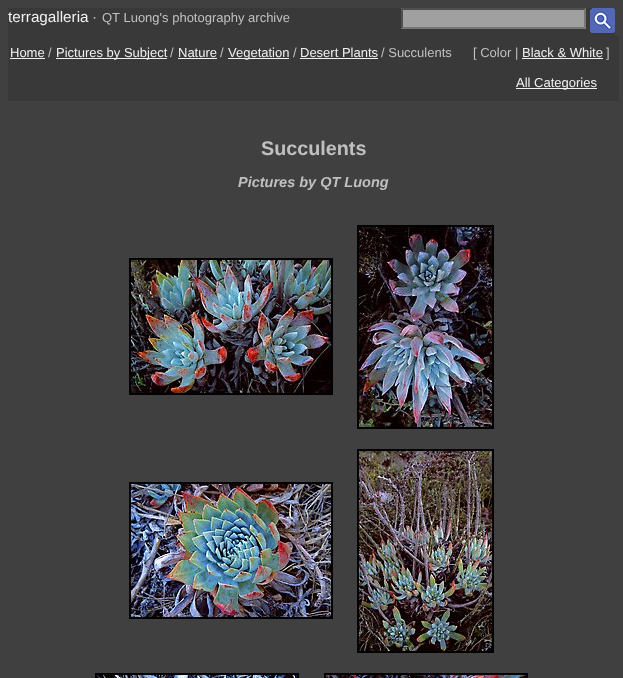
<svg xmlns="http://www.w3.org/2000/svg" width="623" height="678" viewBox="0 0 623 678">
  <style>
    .t1 { font: 15.25px Liberation Sans; fill: #f0f0f0; }
    .t2 { font: 15.25px Liberation Sans; fill: #c0c0c0; }
    .t3 { font: 13px Liberation Sans; fill: #c0c0c0; }
    .t4 { font: 13px Liberation Sans; fill: #f0f0f0; }
    .t5 { font: bold 19.75px Liberation Sans; fill: #c0c0c0; }
    .t6 { font: italic bold 14.5px Liberation Sans; fill: #c0c0c0; }
  </style>
  <rect width="100%" height="100%" fill="#404040"/>
  <rect x="8" y="8" width="607" height="28" fill="#393939"/>
  <text x="8" y="22" class="t1">terragalleria</text>
  <text x="92" y="22" class="t2">·</text>
  <text x="102" y="22" class="t3">QT Luong's photography archive</text>
  <rect x="401" y="8" width="185" height="21" fill="#a0a0a0"/>
  <path d="M401 8H586L584 10H403Z" fill="#4f4f4f"/>
  <path d="M586 8V29L584 27V10Z" fill="#767676"/>
  <path d="M586 29H401L403 27H584Z" fill="#767676"/>
  <path d="M401 29V8L403 10V27Z" fill="#4f4f4f"/>
  <image x="590" y="8" width="25" height="25" href="images/1.png"/>
  <rect x="8" y="36" width="611" height="65" fill="#393939"/>
  <text x="10" y="57" class="t4">Home</text>
  <rect x="10" y="58" width="35" height="1" fill="#f0f0f0"/>
  <text x="48" y="57" class="t3">/</text>
  <rect x="56" y="58" width="111" height="1" fill="#f0f0f0"/>
  <text x="56" y="57" class="t4">Pictures by Subject</text>
  <text x="170" y="57" class="t3">/</text>
  <text x="178" y="57" class="t4">Nature</text>
  <rect x="178" y="58" width="39" height="1" fill="#f0f0f0"/>
  <text x="220" y="57" class="t3">/</text>
  <rect x="228" y="58" width="61" height="1" fill="#f0f0f0"/>
  <text x="228" y="57" class="t4">Vegetation</text>
  <text x="293" y="57" class="t3">/</text>
  <text x="300" y="57" class="t4">Desert Plants</text>
  <rect x="300" y="58" width="78" height="1" fill="#f0f0f0"/>
  <text x="381" y="57" class="t3">/ Succulents</text>
  <text x="473" y="57" class="t3">[ Color |</text>
  <text x="522" y="57" class="t4">Black &amp; White</text>
  <rect x="522" y="58" width="81" height="1" fill="#f0f0f0"/>
  <text x="606" y="57" class="t3">]</text>
  <rect x="516" y="88" width="81" height="1" fill="#f0f0f0"/>
  <text x="516" y="87" class="t4">All Categories</text>
  <text x="261" y="155" class="t5">Succulents</text>
  <text x="238" y="187" class="t6">Pictures by QT Luong</text>
  <image x="129" y="258" width="204" height="137" href="images/2.png"/>
  <image x="357" y="225" width="137" height="204" href="images/3.png"/>
  <image x="129" y="482" width="204" height="137" href="images/4.png"/>
  <image x="357" y="449" width="137" height="204" href="images/5.png"/>
  <image x="95" y="673" width="204" height="5" href="images/6.png"/>
  <image x="324" y="673" width="204" height="5" href="images/7.png"/>
</svg>
